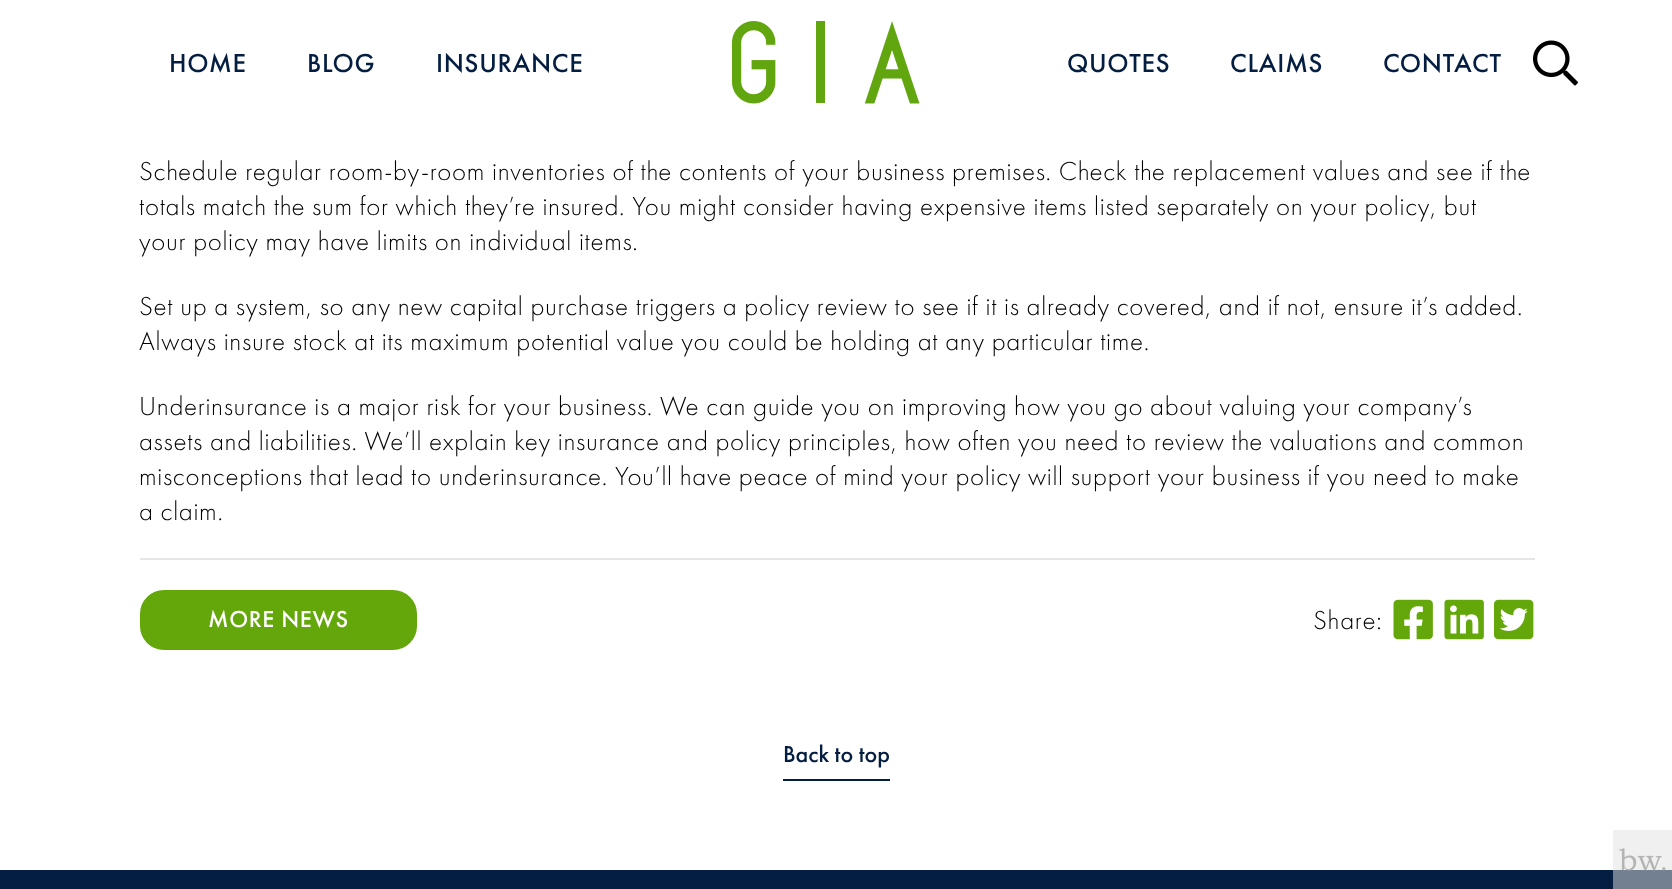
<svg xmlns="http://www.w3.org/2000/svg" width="1672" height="889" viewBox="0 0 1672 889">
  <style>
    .t1 { font: 500 27px Futura PT; letter-spacing: 0.68px; fill: #041e42; }
    .t2 { font: 300 27px Futura PT; letter-spacing: 0.68px; fill: #000; }
    .t3 { font: 500 24px Futura PT; letter-spacing: 0.68px; fill: #fff; }
    .t4 { font: 500 24px Futura PT; fill: #041e42; }
  </style>
  <rect width="100%" height="100%" fill="#fff"/>
  <text x="169" y="72" class="t1">HOME</text>
  <text x="307" y="72" class="t1">BLOG</text>
  <text x="436" y="72" class="t1">INSURANCE</text>
  <image x="732" y="21" width="188" height="83" href="images/1.png"/>
  <text x="1067" y="72" class="t1">QUOTES</text>
  <text x="1230" y="72" class="t1">CLAIMS</text>
  <text x="1383" y="72" class="t1">CONTACT</text>
  <image x="1533" y="40" width="45" height="46" href="images/2.png"/>
  <text x="139" y="180" class="t2">Schedule regular room-by-room inventories of the contents of your business premises. Check the replacement values and see if the</text>
  <text x="139" y="215" class="t2">totals match the sum for which they’re insured. You might consider having expensive items listed separately on your policy, but</text>
  <text x="139" y="250" class="t2">your policy may have limits on individual items.</text>
  <text x="139" y="315" class="t2">Set up a system, so any new capital purchase triggers a policy review to see if it is already covered, and if not, ensure it’s added.</text>
  <text x="139" y="350" class="t2">Always insure stock at its maximum potential value you could be holding at any particular time.</text>
  <text x="139" y="415" class="t2">Underinsurance is a major risk for your business. We can guide you on improving how you go about valuing your company’s</text>
  <text x="139" y="450" class="t2">assets and liabilities. We’ll explain key insurance and policy principles, how often you need to review the valuations and common</text>
  <text x="139" y="485" class="t2">misconceptions that lead to underinsurance. You’ll have peace of mind your policy will support your business if you need to make</text>
  <text x="139" y="520" class="t2">a claim.</text>
  <rect x="140" y="558" width="1395" height="2" fill="#e6e6e6"/>
  <rect x="141" y="591" width="275" height="58" rx="23" fill="#64a70b" stroke="#64a70b" stroke-width="2"/>
  <text x="208" y="627" class="t3">MORE NEWS</text>
  <text x="1313" y="629" class="t2">Share:</text>
  <image x="1393" y="599" width="40" height="41" href="images/3.png"/>
  <image x="1444" y="599" width="40" height="41" href="images/4.png"/>
  <image x="1494" y="599" width="40" height="41" href="images/5.png"/>
  <text x="783" y="762" class="t4">Back to top</text>
  <rect x="783" y="779" width="107" height="2" fill="#041e42"/>
  <rect x="0" y="870" width="1672" height="19" fill="#041e42"/>
  <image x="1613" y="830" width="59" height="59" href="images/6.png"/>
</svg>
